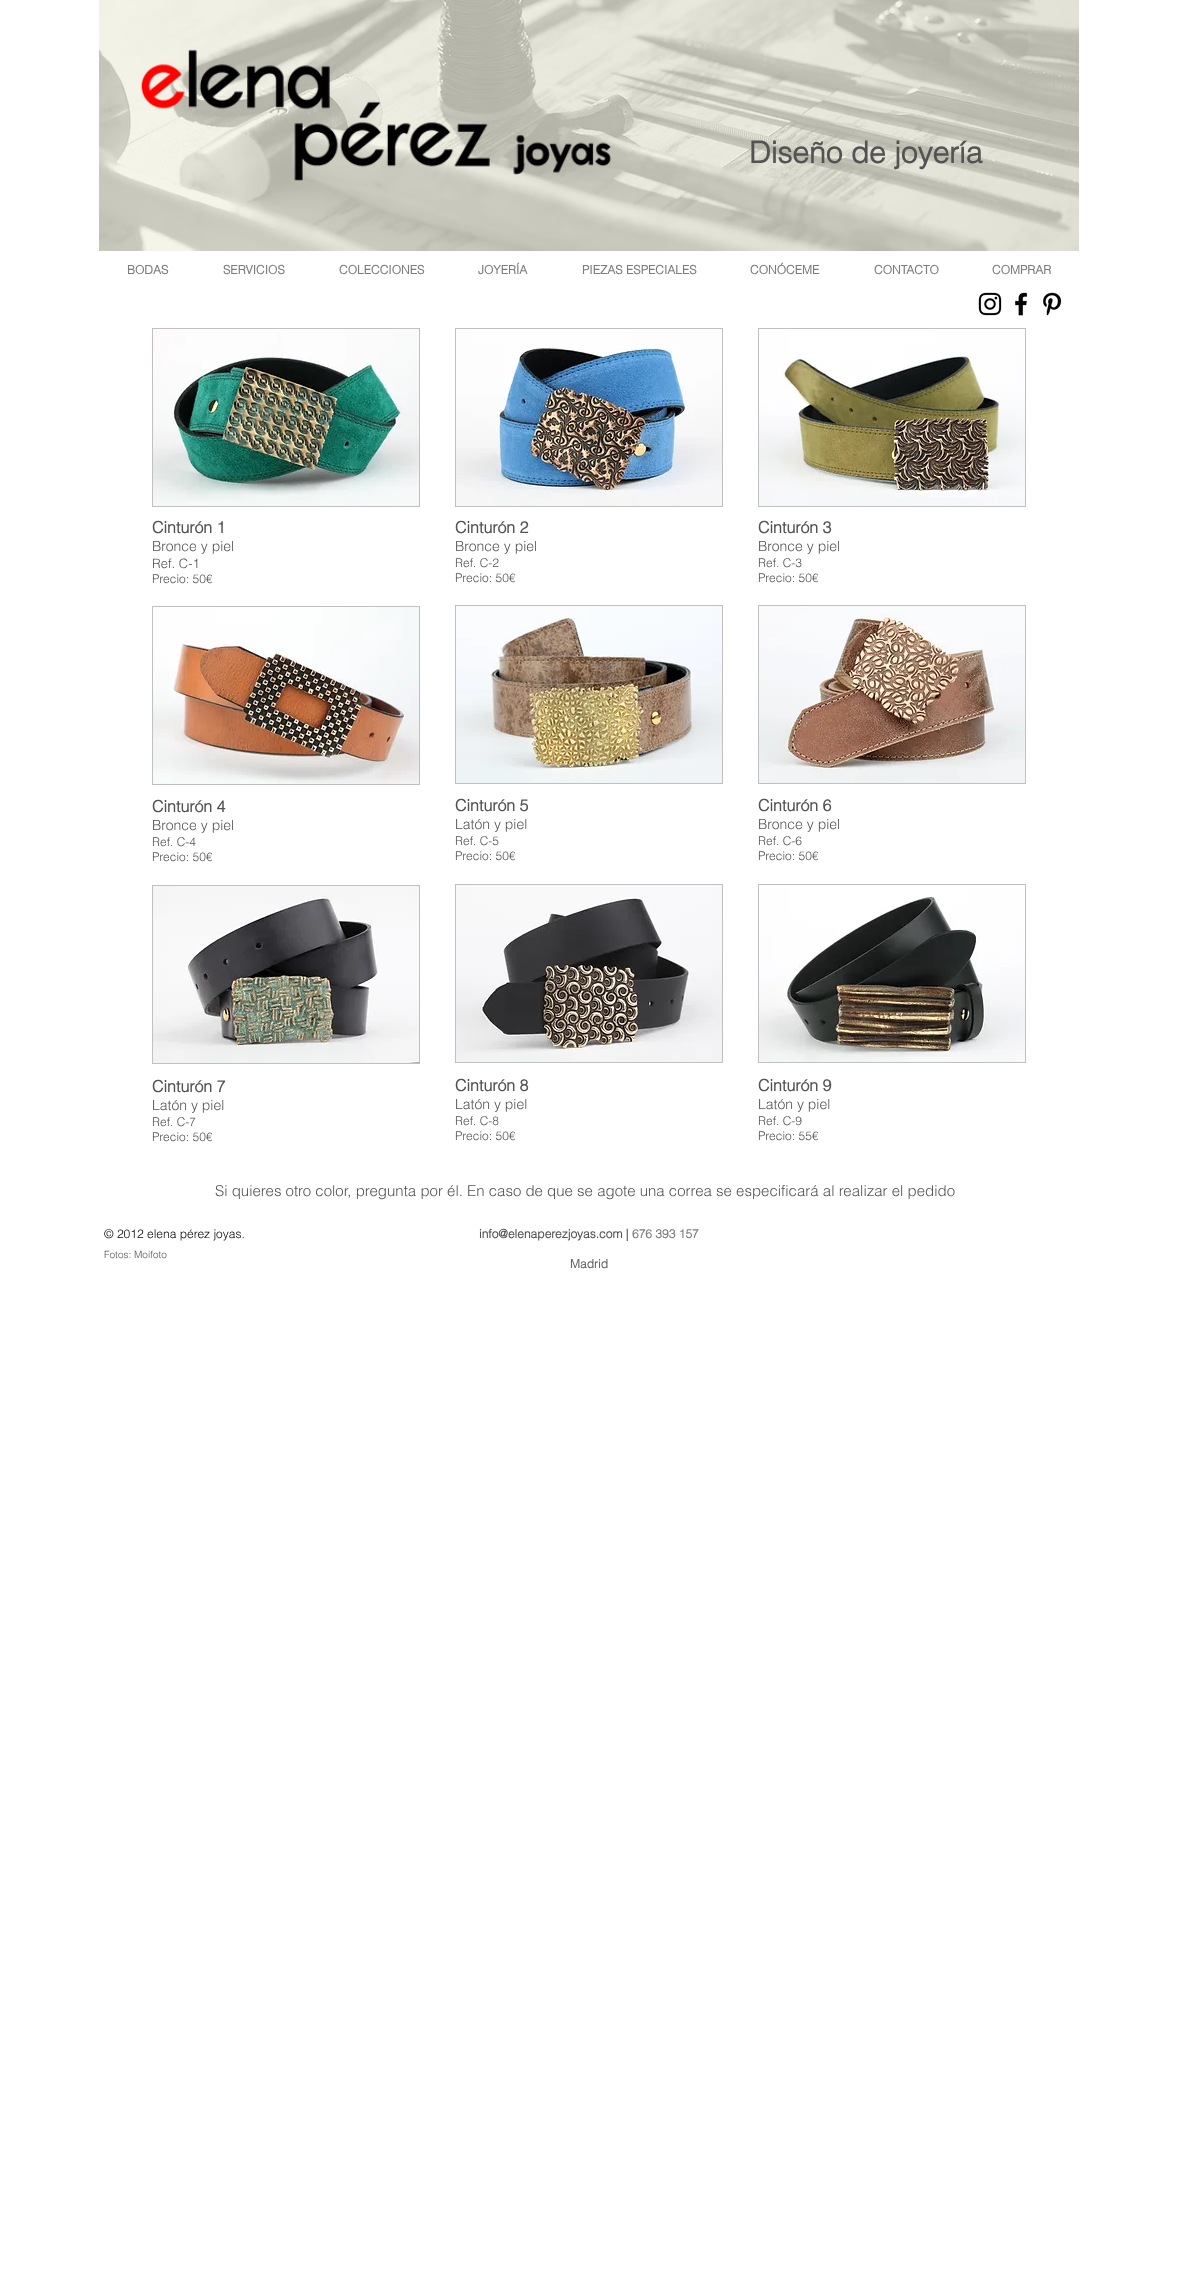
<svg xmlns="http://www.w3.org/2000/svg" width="1177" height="2287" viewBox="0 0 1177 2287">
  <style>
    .t1 { font: bold 30px helvetica; fill: #535353; }
    .t2 { font: bold 12px helvetica; fill: #7d7d7d; }
    .t3 { font: bold 16px helvetica; fill: #535353; }
    .t4 { font: 300 14px helvetica; fill: #535353; }
    .t5 { font: 300 13px helvetica; fill: #535353; }
    .t6 { font: 300 12px helvetica; fill: #535353; }
    .t7 { font: 300 15px helvetica; fill: #535353; }
    .t8 { font: 300 12px helvetica; fill: #000; }
    .t9 { font: bold 12px helvetica; fill: #535353; }
    .t10 { font: bold 12px helvetica; fill: #666; }
    .t11 { font: 300 10px helvetica; fill: #535353; }
  </style>
  <rect width="100%" height="100%" fill="#fff"/>
  <rect x="99" y="0" width="980" height="251" fill="#f2f0e1"/>
  <image x="99" y="0" width="980" height="251" href="images/1.png"/>
  <image x="140" y="49" width="472" height="132" href="images/2.png"/>
  <text x="749" y="163" class="t1">Diseño de joyería</text>
  <text x="127" y="274" class="t2">BODAS</text>
  <text x="223" y="274" class="t2">SERVICIOS</text>
  <text x="339" y="274" class="t2">COLECCIONES</text>
  <text x="478" y="274" class="t2">JOYERÍA</text>
  <text x="582" y="274" class="t2">PIEZAS ESPECIALES</text>
  <text x="750" y="274" class="t2">CONÓCEME</text>
  <text x="874" y="274" class="t2">CONTACTO</text>
  <text x="992" y="274" class="t2">COMPRAR</text>
  <image x="978" y="292" width="24" height="24" href="images/3.png"/>
  <image x="1015" y="292" width="13" height="24" href="images/4.png"/>
  <image x="1042" y="292" width="20" height="24" href="images/5.png"/>
  <rect x="152" y="328" width="268" height="179" fill="#c0c0c0"/>
  <image x="153" y="329" width="266" height="177" href="images/6.png"/>
  <rect x="455" y="328" width="268" height="179" fill="#c0c0c0"/>
  <image x="456" y="329" width="266" height="177" href="images/7.png"/>
  <rect x="758" y="328" width="268" height="179" fill="#c0c0c0"/>
  <image x="759" y="329" width="266" height="177" href="images/8.png"/>
  <text x="152" y="533" class="t3">Cinturón 1</text>
  <text x="152" y="551" class="t4">Bronce y piel</text>
  <text x="152" y="568" class="t5">Ref. C-1</text>
  <text x="152" y="583" class="t6">Precio: 50€</text>
  <text x="455" y="533" class="t3">Cinturón 2</text>
  <text x="455" y="551" class="t4">Bronce y piel</text>
  <text x="455" y="567" class="t6">Ref. C-2</text>
  <text x="455" y="582" class="t6">Precio: 50€</text>
  <text x="758" y="533" class="t3">Cinturón 3</text>
  <text x="758" y="551" class="t4">Bronce y piel</text>
  <text x="758" y="567" class="t6">Ref. C-3</text>
  <text x="758" y="582" class="t6">Precio: 50€</text>
  <rect x="152" y="606" width="268" height="179" fill="#c0c0c0"/>
  <image x="153" y="607" width="266" height="177" href="images/9.png"/>
  <rect x="455" y="605" width="268" height="179" fill="#c0c0c0"/>
  <image x="456" y="606" width="266" height="177" href="images/10.png"/>
  <rect x="758" y="605" width="268" height="179" fill="#c0c0c0"/>
  <image x="759" y="606" width="266" height="177" href="images/11.png"/>
  <text x="152" y="812" class="t3">Cinturón 4</text>
  <text x="152" y="830" class="t4">Bronce y piel</text>
  <text x="152" y="846" class="t6">Ref. C-4</text>
  <text x="152" y="861" class="t6">Precio: 50€</text>
  <text x="455" y="811" class="t3">Cinturón 5</text>
  <text x="455" y="829" class="t4">Latón y piel</text>
  <text x="455" y="845" class="t6">Ref. C-5</text>
  <text x="455" y="860" class="t6">Precio: 50€</text>
  <text x="758" y="811" class="t3">Cinturón 6</text>
  <text x="758" y="829" class="t4">Bronce y piel</text>
  <text x="758" y="845" class="t6">Ref. C-6</text>
  <text x="758" y="860" class="t6">Precio: 50€</text>
  <rect x="152" y="885" width="268" height="179" fill="#c0c0c0"/>
  <image x="153" y="886" width="266" height="177" href="images/12.png"/>
  <rect x="455" y="884" width="268" height="179" fill="#c0c0c0"/>
  <image x="456" y="885" width="266" height="177" href="images/13.png"/>
  <rect x="758" y="884" width="268" height="179" fill="#c0c0c0"/>
  <image x="759" y="885" width="266" height="177" href="images/14.png"/>
  <text x="152" y="1092" class="t3">Cinturón 7</text>
  <text x="152" y="1110" class="t4">Latón y piel</text>
  <text x="152" y="1126" class="t6">Ref. C-7</text>
  <text x="152" y="1141" class="t6">Precio: 50€</text>
  <text x="455" y="1091" class="t3">Cinturón 8</text>
  <text x="455" y="1109" class="t4">Latón y piel</text>
  <text x="455" y="1125" class="t6">Ref. C-8</text>
  <text x="455" y="1140" class="t6">Precio: 50€</text>
  <text x="758" y="1091" class="t3">Cinturón 9</text>
  <text x="758" y="1109" class="t4">Latón y piel</text>
  <text x="758" y="1125" class="t6">Ref. C-9</text>
  <text x="758" y="1140" class="t6">Precio: 55€</text>
  <text x="215" y="1196" class="t7">Si quieres otro color, pregunta por él. En caso de que se agote una correa se especificará al realizar el pedido</text>
  <text x="104" y="1238" class="t8">© 2012 elena pérez joyas.</text>
  <text x="479" y="1238" class="t9">info@elenaperezjoyas.com |</text>
  <text x="632" y="1238" class="t2">676 393 157</text>
  <text x="570" y="1268" class="t10">Madrid</text>
  <text x="104" y="1258" class="t11">Fotos: Moifoto</text>
</svg>
